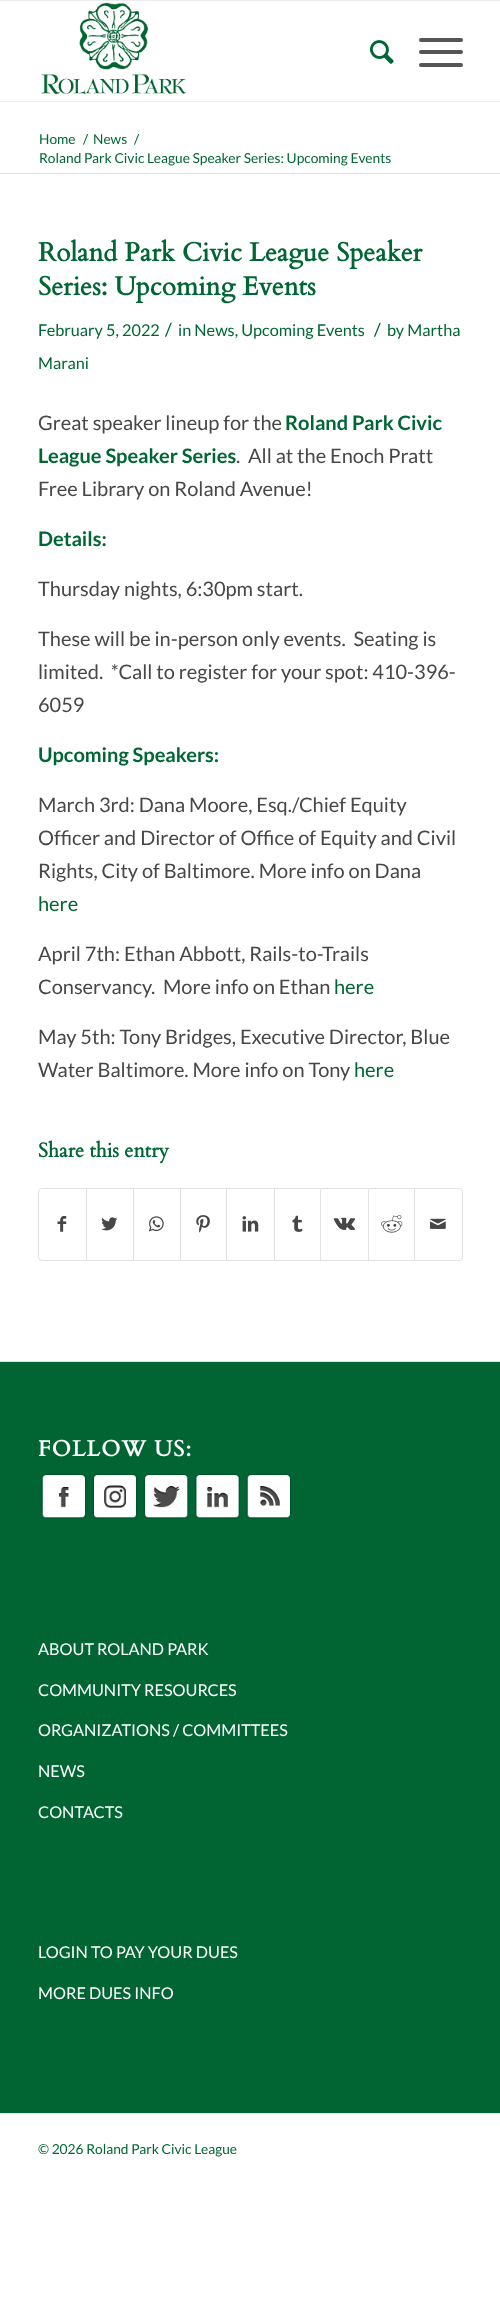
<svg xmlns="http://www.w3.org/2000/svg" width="500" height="2317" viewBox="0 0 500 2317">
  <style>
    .t1 { font: 13.75px Lato; fill: #006635; }
    .t2 { font: bold 26.25px Cardo; fill: #006635; }
    .t3 { font: 16.25px Lato; fill: #006635; }
    .t4 { font: 18px Lato; fill: #006635; }
    .t5 { font: 20px Lato; fill: #474747; }
    .t6 { font: bold 20px Lato; fill: #006635; }
    .t7 { font: 20px Lato; fill: #006635; }
    .t8 { font: bold 20px Cardo; fill: #006635; }
    .t9 { font: bold 22px Cardo; letter-spacing: 1.25px; fill: #fff; }
    .t10 { font: 16.25px Lato; fill: #fff; }
  </style>
  <defs>
    <clipPath id="clip1"><rect x="38" y="236" width="425" height="1038"/></clipPath>
  </defs>
  <rect width="100%" height="100%" fill="#fff"/>
  <rect x="0" y="0" width="500" height="1" fill="#ececec"/>
  <rect x="0" y="101" width="500" height="1" fill="#ececec"/>
  <image x="41" y="2" width="145" height="93" href="images/1.png"/>
  <image x="370" y="40" width="24" height="24" href="images/2.png"/>
  <rect x="419" y="50" width="44" height="4" rx="2" fill="#555"/>
  <rect x="419" y="38" width="44" height="4" rx="2" fill="#555"/>
  <rect x="419" y="63" width="44" height="4" rx="2" fill="#555"/>
  <text x="39" y="144" class="t1">Home</text>
  <text x="83" y="144" class="t1">/</text>
  <text x="93" y="144" class="t1">News</text>
  <text x="134" y="144" class="t1">/</text>
  <text x="39" y="163" class="t1">Roland Park Civic League Speaker Series: Upcoming Events</text>
  <rect x="0" y="173" width="500" height="1" fill="#e1e1e1"/>
  <text x="38" y="261" class="t2">Roland Park Civic League Speaker</text>
  <text x="38" y="295" class="t2">Series: Upcoming Events</text>
  <text x="38" y="336" class="t3">February 5, 2022</text>
  <text x="165" y="336" class="t4">/</text>
  <text x="178" y="336" class="t3">in News, Upcoming Events</text>
  <text x="374" y="336" class="t4">/</text>
  <text x="387" y="336" class="t3">by Martha</text>
  <text x="38" y="369" class="t3">Marani</text>
  <text x="38" y="430" class="t5">Great speaker lineup for the</text>
  <text x="285" y="430" class="t6">Roland Park Civic</text>
  <text x="38" y="463" class="t6">League Speaker Series</text>
  <text x="236" y="463" class="t5" xml:space="preserve">.  All at the Enoch Pratt</text>
  <text x="38" y="496" class="t5">Free Library on Roland Avenue!</text>
  <text x="38" y="546" class="t6">Details:</text>
  <g clip-path="url(#clip1)">
    <text x="38" y="596" class="t5">Thursday nights, 6:30pm start.</text>
    <text x="38" y="646" class="t5" xml:space="preserve">These will be in-person only events.  Seating is</text>
  </g>
  <text x="38" y="679" class="t5" xml:space="preserve">limited.  *Call to register for your spot: 410-396-</text>
  <text x="38" y="712" class="t5">6059</text>
  <text x="38" y="762" class="t6">Upcoming Speakers:</text>
  <text x="38" y="812" class="t5">March 3rd: Dana Moore, Esq./Chief Equity</text>
  <text x="38" y="845" class="t5">Officer and Director of Office of Equity and Civil</text>
  <text x="38" y="878" class="t5">Rights, City of Baltimore. More info on Dana</text>
  <text x="38" y="911" class="t7">here</text>
  <text x="38" y="961" class="t5">April 7th: Ethan Abbott, Rails-to-Trails</text>
  <text x="38" y="994" class="t5" xml:space="preserve">Conservancy.  More info on Ethan</text>
  <text x="334" y="994" class="t7">here</text>
  <text x="38" y="1044" class="t5">May 5th: Tony Bridges, Executive Director, Blue</text>
  <text x="38" y="1077" class="t5">Water Baltimore. More info on Tony</text>
  <text x="354" y="1077" class="t7">here</text>
  <text x="38" y="1157" class="t8">Share this entry</text>
  <rect x="38.5" y="1188.5" width="424" height="72" rx="3.5" fill="none" stroke="#e1e1e1"/>
  <image x="57" y="1216" width="10" height="16" href="images/3.png"/>
  <rect x="86" y="1189" width="1" height="71" fill="#e1e1e1"/>
  <image x="101" y="1217" width="17" height="14" href="images/4.png"/>
  <rect x="133" y="1189" width="1" height="71" fill="#e1e1e1"/>
  <image x="148" y="1216" width="16" height="16" href="images/5.png"/>
  <rect x="180" y="1189" width="1" height="71" fill="#e1e1e1"/>
  <image x="196" y="1215" width="14" height="18" href="images/6.png"/>
  <rect x="226" y="1189" width="1" height="71" fill="#e1e1e1"/>
  <image x="242" y="1216" width="17" height="16" href="images/7.png"/>
  <rect x="274" y="1189" width="1" height="71" fill="#e1e1e1"/>
  <image x="292" y="1215" width="11" height="17" href="images/8.png"/>
  <rect x="320" y="1189" width="1" height="71" fill="#e1e1e1"/>
  <image x="333" y="1217" width="23" height="13" href="images/9.png"/>
  <rect x="368" y="1189" width="1" height="71" fill="#e1e1e1"/>
  <image x="381" y="1215" width="22" height="18" href="images/10.png"/>
  <rect x="414" y="1189" width="1" height="71" fill="#e1e1e1"/>
  <image x="430" y="1218" width="16" height="11" href="images/11.png"/>
  <rect x="0" y="1362" width="500" height="751" fill="#006533"/>
  <rect x="0" y="1361" width="500" height="1" fill="#e1e1e1"/>
  <text x="38" y="1456" class="t9">FOLLOW US:</text>
  <image x="41" y="1473" width="46" height="46" href="images/12.png"/>
  <image x="92" y="1473" width="46" height="46" href="images/13.png"/>
  <image x="143" y="1473" width="46" height="46" href="images/14.png"/>
  <image x="195" y="1473" width="45" height="46" href="images/15.png"/>
  <image x="246" y="1473" width="46" height="46" href="images/16.png"/>
  <text x="38" y="1655" class="t10">ABOUT ROLAND PARK</text>
  <text x="38" y="1696" class="t10">COMMUNITY RESOURCES</text>
  <text x="38" y="1736" class="t10">ORGANIZATIONS / COMMITTEES</text>
  <text x="38" y="1777" class="t10">NEWS</text>
  <text x="38" y="1818" class="t10">CONTACTS</text>
  <text x="38" y="1958" class="t10">LOGIN TO PAY YOUR DUES</text>
  <text x="38" y="1999" class="t10">MORE DUES INFO</text>
  <rect x="0" y="2113" width="500" height="1" fill="#e1e1e1"/>
  <text x="38" y="2154" class="t1">© 2026 Roland Park Civic League</text>
</svg>
